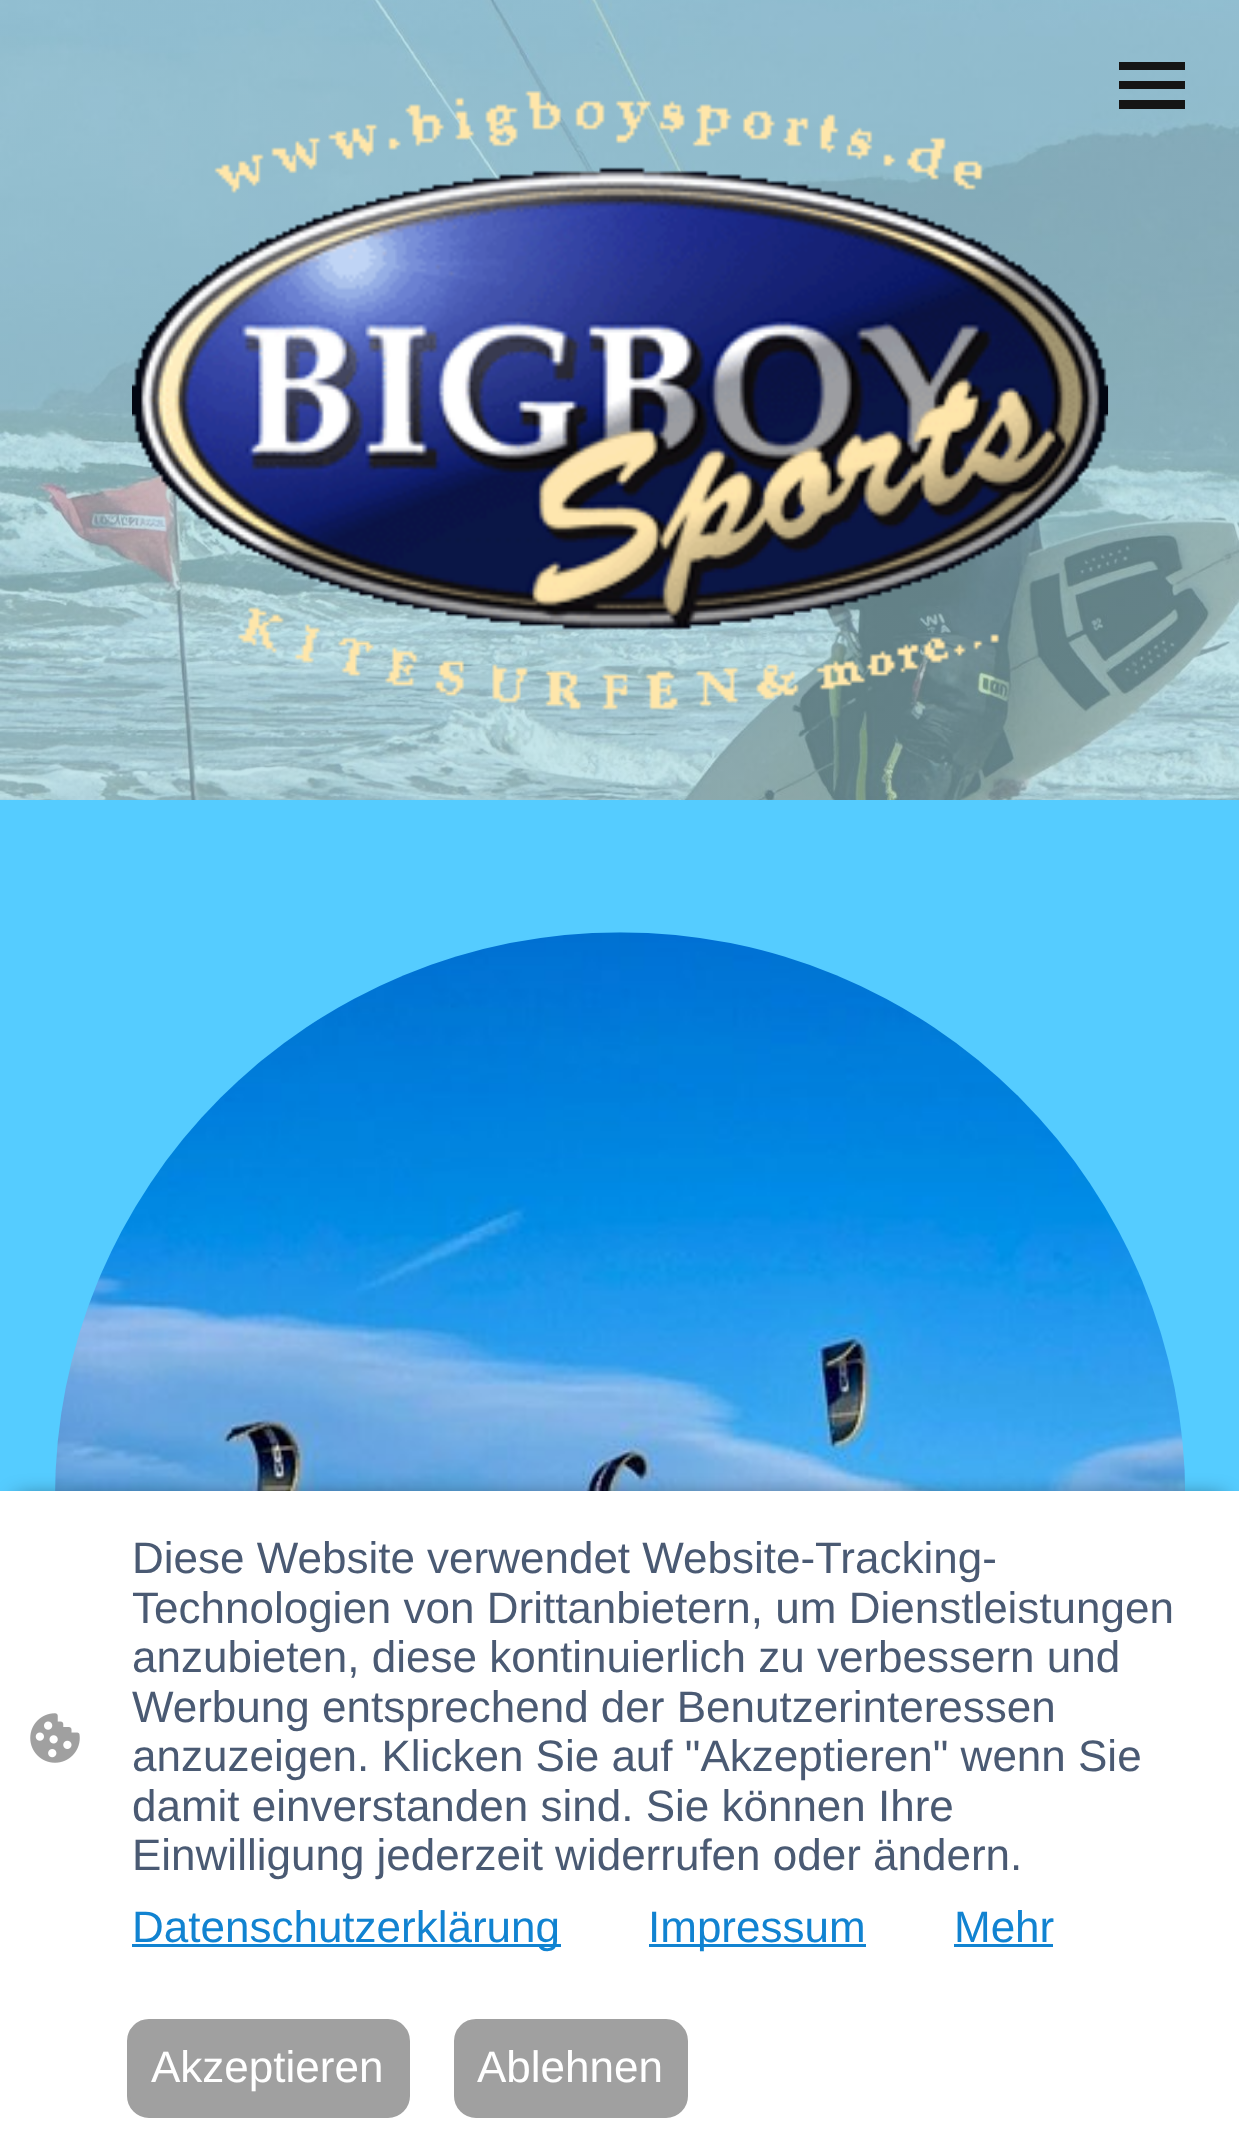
<svg xmlns="http://www.w3.org/2000/svg" width="1239" height="2137" viewBox="0 0 1239 2137">
  <style>
    .t1 { font: 44px Liberation Sans; fill: #4a5a73; }
    .t2 { font: 44px Liberation Sans; fill: #1183d1; }
    .t3 { font: 44px Liberation Sans; fill: #fff; }
  </style>
  <rect width="100%" height="100%" fill="#fff"/>
  <image x="0" y="0" width="1239" height="800" href="images/1.png"/>
  <image x="132" y="90" width="977" height="620" href="images/2.png"/>
  <rect x="1119" y="62" width="66" height="8" fill="#151515"/>
  <rect x="1119" y="81" width="66" height="8" fill="#151515"/>
  <rect x="1119" y="100" width="66" height="9" fill="#151515"/>
  <rect x="0" y="800" width="1239" height="691" fill="#5cf"/>
  <image x="55" y="932" width="1130" height="559" href="images/3.png"/>
  <rect x="17" y="1499" width="1207" height="616" fill="#000000a1" filter="blur(11px)"/>
  <rect x="0" y="1491" width="1239" height="646" fill="#fff"/>
  <image x="30" y="1713" width="50" height="50" href="images/4.png"/>
  <text x="132" y="1573" class="t1">Diese Website verwendet Website-Tracking-</text>
  <text x="132" y="1623" class="t1">Technologien von Drittanbietern, um Dienstleistungen</text>
  <text x="132" y="1672" class="t1">anzubieten, diese kontinuierlich zu verbessern und</text>
  <text x="132" y="1722" class="t1">Werbung entsprechend der Benutzerinteressen</text>
  <text x="132" y="1771" class="t1">anzuzeigen. Klicken Sie auf "Akzeptieren" wenn Sie</text>
  <text x="132" y="1821" class="t1">damit einverstanden sind. Sie können Ihre</text>
  <text x="132" y="1870" class="t1">Einwilligung jederzeit widerrufen oder ändern.</text>
  <rect x="132" y="1944" width="429" height="3" fill="#1183d1"/>
  <text x="132" y="1942" class="t2">Datenschutzerklärung</text>
  <rect x="649" y="1944" width="217" height="3" fill="#1183d1"/>
  <text x="648" y="1942" class="t2">Impressum</text>
  <text x="954" y="1942" class="t2">Mehr</text>
  <rect x="954" y="1944" width="99" height="3" fill="#1183d1"/>
  <rect x="128.5" y="2020.5" width="280" height="96" rx="20.5" fill="#a0a0a0" stroke="#a0a0a0" stroke-width="3"/>
  <text x="151" y="2082" class="t3">Akzeptieren</text>
  <rect x="455.5" y="2020.5" width="231" height="96" rx="20.5" fill="#a0a0a0" stroke="#a0a0a0" stroke-width="3"/>
  <text x="477" y="2082" class="t3">Ablehnen</text>
</svg>
